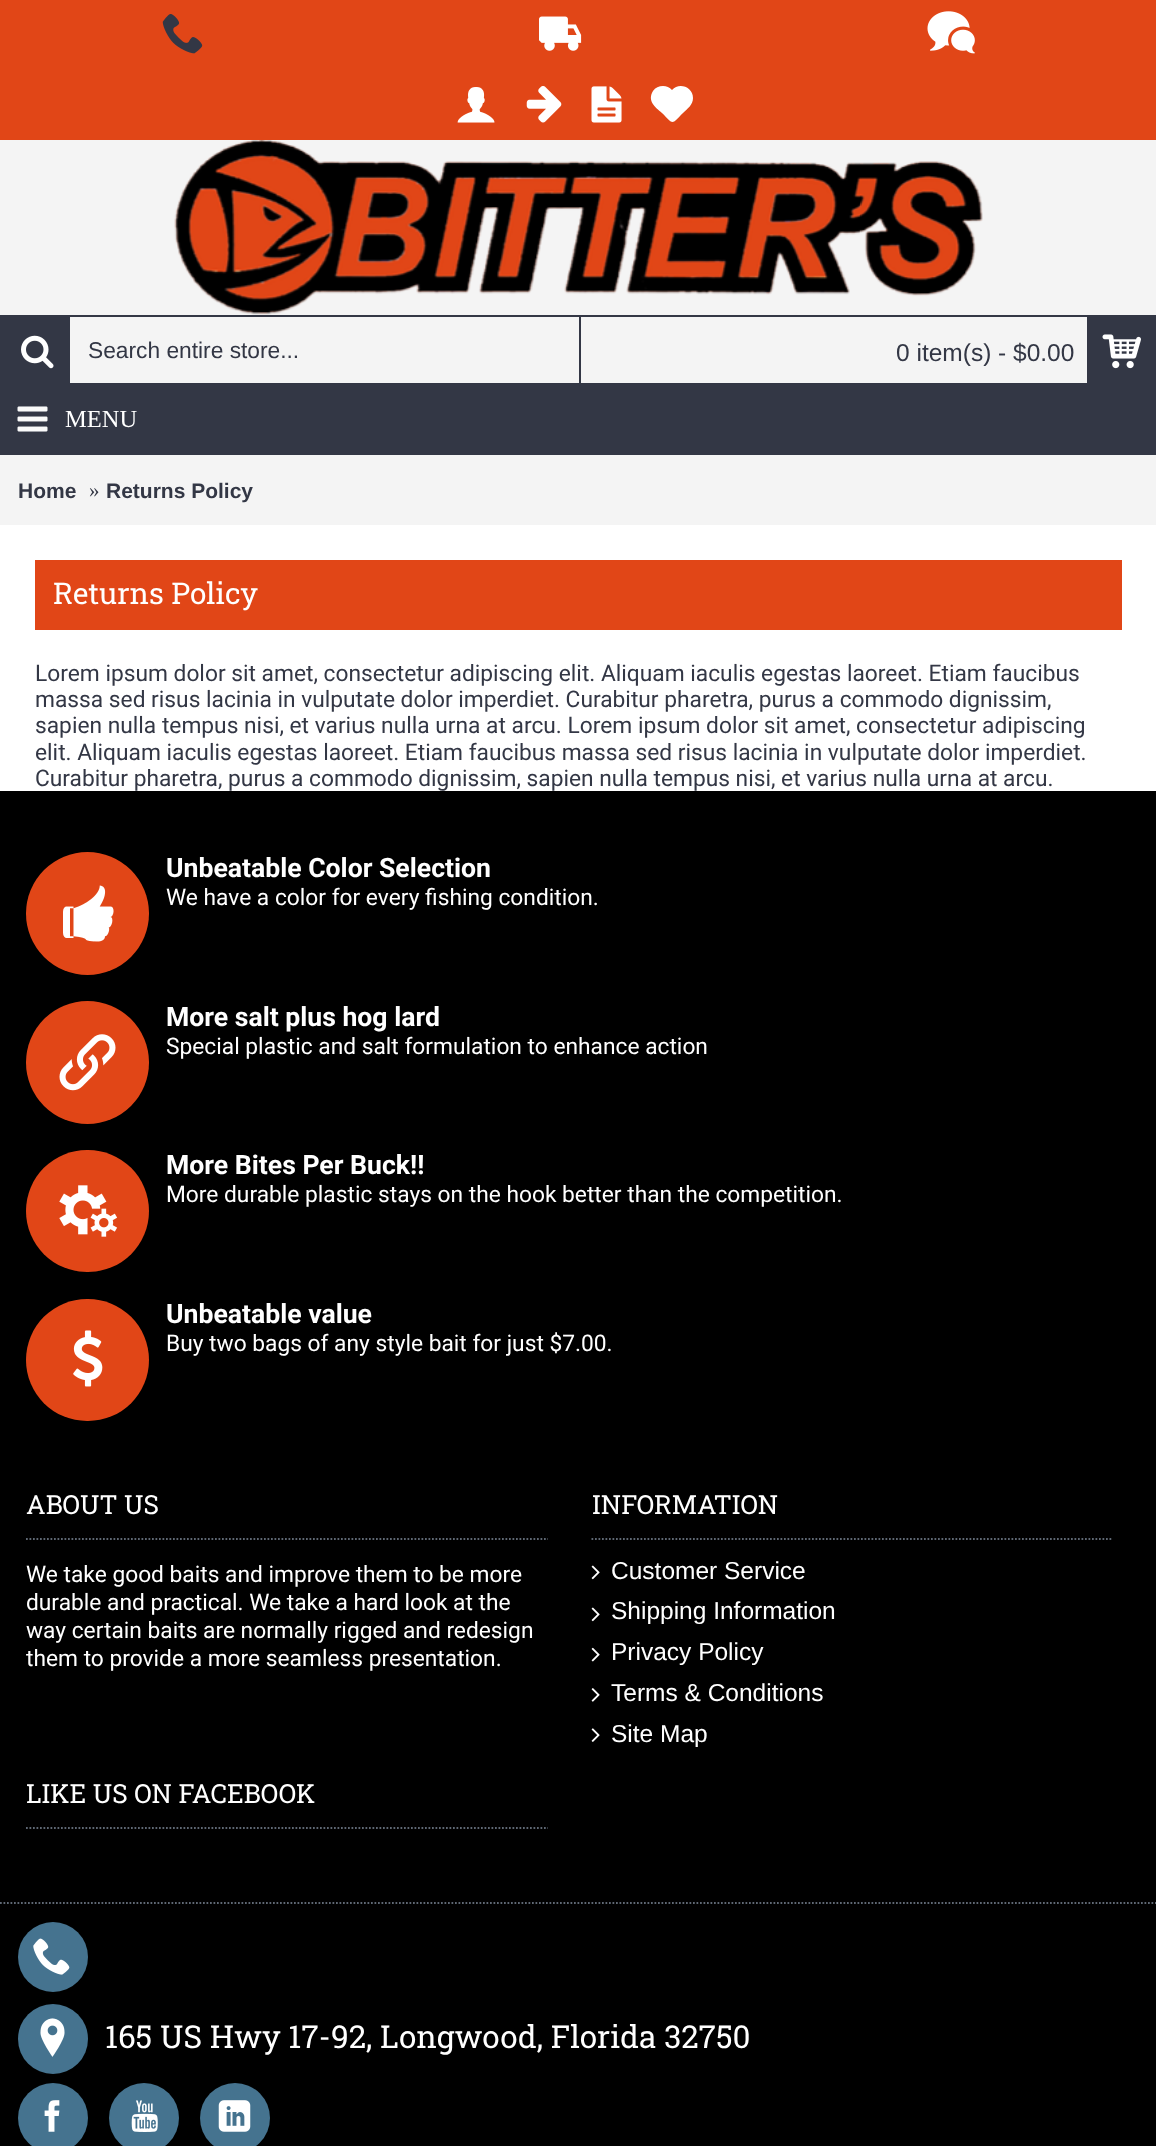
<svg xmlns="http://www.w3.org/2000/svg" width="1156" height="2146" viewBox="0 0 1156 2146">
  <style>
    .t1 { font: 22.75px Liberation Sans; fill: #333745; }
    .t2 { font: 24.5px Liberation Sans; fill: #333745; }
    .t3 { font: 24.5px Liberation Serif; fill: #fff; }
    .t4 { font: bold 21px Liberation Sans; fill: #333745; }
    .t5 { font: 21px Liberation Serif; fill: #333745; }
    .t6 { font: 29.75px Roboto Slab; fill: #fff; }
    .t7 { font: 22.75px Roboto; fill: #333745; }
    .t8 { font: bold 26.6px Roboto; fill: #fff; }
    .t9 { font: 22.75px Roboto; fill: #fff; }
    .t10 { font: 26.25px Roboto Slab; fill: #fff; }
    .t11 { font: 24.5px Liberation Sans; fill: #fff; }
    .t12 { font: 31.5px Roboto Slab; fill: #fff; }
  </style>
  <rect width="100%" height="100%" fill="#fff"/>
  <rect x="0" y="140" width="1156" height="243" fill="#f4f4f4"/>
  <rect x="0" y="0" width="1156" height="140" fill="#e14617"/>
  <image x="162" y="14" width="41" height="40" href="images/1.png"/>
  <image x="539" y="16" width="43" height="35" href="images/2.png"/>
  <image x="927" y="11" width="48" height="43" href="images/3.png"/>
  <image x="457" y="87" width="38" height="36" href="images/4.png"/>
  <image x="526" y="86" width="36" height="37" href="images/5.png"/>
  <image x="591" y="86" width="31" height="37" href="images/6.png"/>
  <path d="M693 98C693 105 687 109 683 113C671 125 674 125 662 113C655 107 647 101 653 91C657 85 667 84 672 90C679 82 693 87 693 98Z" fill="#fff"/>
  <image x="174" y="140" width="809" height="175" href="images/7.png"/>
  <rect x="0" y="315" width="70" height="70" fill="#333745"/>
  <image x="21" y="335" width="33" height="34" href="images/8.png"/>
  <rect x="70" y="315" width="1086" height="2" fill="#333745"/>
  <rect x="70" y="383" width="1017" height="2" fill="#333745"/>
  <text x="88" y="358" class="t1">Search entire store...</text>
  <rect x="579" y="315" width="2" height="70" fill="#333745"/>
  <text x="896" y="361" class="t2">0 item(s) - $0.00</text>
  <rect x="1087" y="317" width="69" height="68" fill="#333745"/>
  <image x="1102" y="334" width="39" height="35" href="images/9.png"/>
  <rect x="0" y="385" width="1156" height="70" fill="#333745"/>
  <image x="17" y="406" width="31" height="26" href="images/10.png"/>
  <text x="65" y="427" class="t3">MENU</text>
  <rect x="0" y="455" width="1156" height="70" fill="#f4f4f4"/>
  <text x="18" y="498" class="t4">Home</text>
  <text x="89" y="497" class="t5">»</text>
  <text x="106" y="498" class="t4">Returns Policy</text>
  <rect x="35" y="560" width="1087" height="70" fill="#e14617"/>
  <text x="53" y="604" class="t6">Returns Policy</text>
  <text x="35" y="681" class="t7">Lorem ipsum dolor sit amet, consectetur adipiscing elit. Aliquam iaculis egestas laoreet. Etiam faucibus</text>
  <text x="35" y="707" class="t7">massa sed risus lacinia in vulputate dolor imperdiet. Curabitur pharetra, purus a commodo dignissim,</text>
  <text x="35" y="733" class="t7">sapien nulla tempus nisi, et varius nulla urna at arcu. Lorem ipsum dolor sit amet, consectetur adipiscing</text>
  <text x="35" y="760" class="t7">elit. Aliquam iaculis egestas laoreet. Etiam faucibus massa sed risus lacinia in vulputate dolor imperdiet.</text>
  <text x="35" y="786" class="t7">Curabitur pharetra, purus a commodo dignissim, sapien nulla tempus nisi, et varius nulla urna at arcu.</text>
  <rect x="0" y="791" width="1156" height="1355" fill="#000"/>
  <circle cx="87.5" cy="913.5" r="61.5" fill="#e14617"/>
  <image x="63" y="885" width="51" height="57" href="images/11.png"/>
  <text x="166" y="877" class="t8">Unbeatable Color Selection</text>
  <text x="166" y="905" class="t9">We have a color for every fishing condition.</text>
  <circle cx="87.5" cy="1062.5" r="61.5" fill="#e14617"/>
  <image x="59" y="1034" width="57" height="57" href="images/12.png"/>
  <text x="166" y="1026" class="t8">More salt plus hog lard</text>
  <text x="166" y="1054" class="t9">Special plastic and salt formulation to enhance action</text>
  <rect x="26" y="1150" width="123" height="122" rx="61" fill="#e14617"/>
  <image x="59" y="1185" width="59" height="52" href="images/13.png"/>
  <text x="166" y="1174" class="t8">More Bites Per Buck!!</text>
  <text x="166" y="1202" class="t9">More durable plastic stays on the hook better than the competition.</text>
  <rect x="26" y="1299" width="123" height="122" rx="61" fill="#e14617"/>
  <image x="73" y="1330" width="30" height="57" href="images/14.png"/>
  <text x="166" y="1323" class="t8">Unbeatable value</text>
  <text x="166" y="1351" class="t9">Buy two bags of any style bait for just $7.00.</text>
  <path d="M26 1539H548" fill="none" stroke="#5f6874" stroke-width="1.8" stroke-dasharray="1.75 1.75"/>
  <text x="26" y="1514" class="t10">ABOUT US</text>
  <text x="26" y="1582" class="t9">We take good baits and improve them to be more</text>
  <text x="26" y="1610" class="t9">durable and practical. We take a hard look at the</text>
  <text x="26" y="1638" class="t9">way certain baits are normally rigged and redesign</text>
  <text x="26" y="1666" class="t9">them to provide a more seamless presentation.</text>
  <path d="M591.5 1539H1113" fill="none" stroke="#5f6874" stroke-width="1.8" stroke-dasharray="1.75 1.75"/>
  <text x="592" y="1514" class="t10">INFORMATION</text>
  <image x="591" y="1565" width="9" height="15" href="images/15.png"/>
  <text x="611" y="1579" class="t11">Customer Service</text>
  <image x="591" y="1607" width="9" height="15" href="images/15.png"/>
  <text x="611" y="1619" class="t11">Shipping Information</text>
  <image x="591" y="1647" width="9" height="15" href="images/16.png"/>
  <text x="611" y="1660" class="t11">Privacy Policy</text>
  <image x="591" y="1688" width="9" height="14" href="images/17.png"/>
  <text x="611" y="1701" class="t11">Terms &amp; Conditions</text>
  <image x="591" y="1728" width="9" height="14" href="images/18.png"/>
  <text x="611" y="1742" class="t11">Site Map</text>
  <path d="M26 1828H548" fill="none" stroke="#5f6874" stroke-width="1.8" stroke-dasharray="1.75 1.75"/>
  <text x="26" y="1803" class="t10">LIKE US ON FACEBOOK</text>
  <path d="M0 1903H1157" fill="none" stroke="#5f6874" stroke-width="1.8" stroke-dasharray="1.75 1.75"/>
  <circle cx="53" cy="1957" r="35" fill="#45738f"/>
  <image x="33" y="1938" width="37" height="37" href="images/19.png"/>
  <circle cx="53" cy="2039" r="35" fill="#45738f"/>
  <image x="40" y="2018" width="25" height="39" href="images/20.png"/>
  <text x="105" y="2048" class="t12">165 US Hwy 17-92, Longwood, Florida 32750</text>
  <circle cx="53" cy="2118" r="35" fill="#45738f"/>
  <image x="44" y="2100" width="16" height="32" href="images/21.png"/>
  <circle cx="144" cy="2118" r="35" fill="#45738f"/>
  <image x="131" y="2100" width="27" height="32" href="images/22.png"/>
  <circle cx="235" cy="2118" r="35" fill="#45738f"/>
  <image x="218" y="2100" width="33" height="32" href="images/23.png"/>
</svg>
